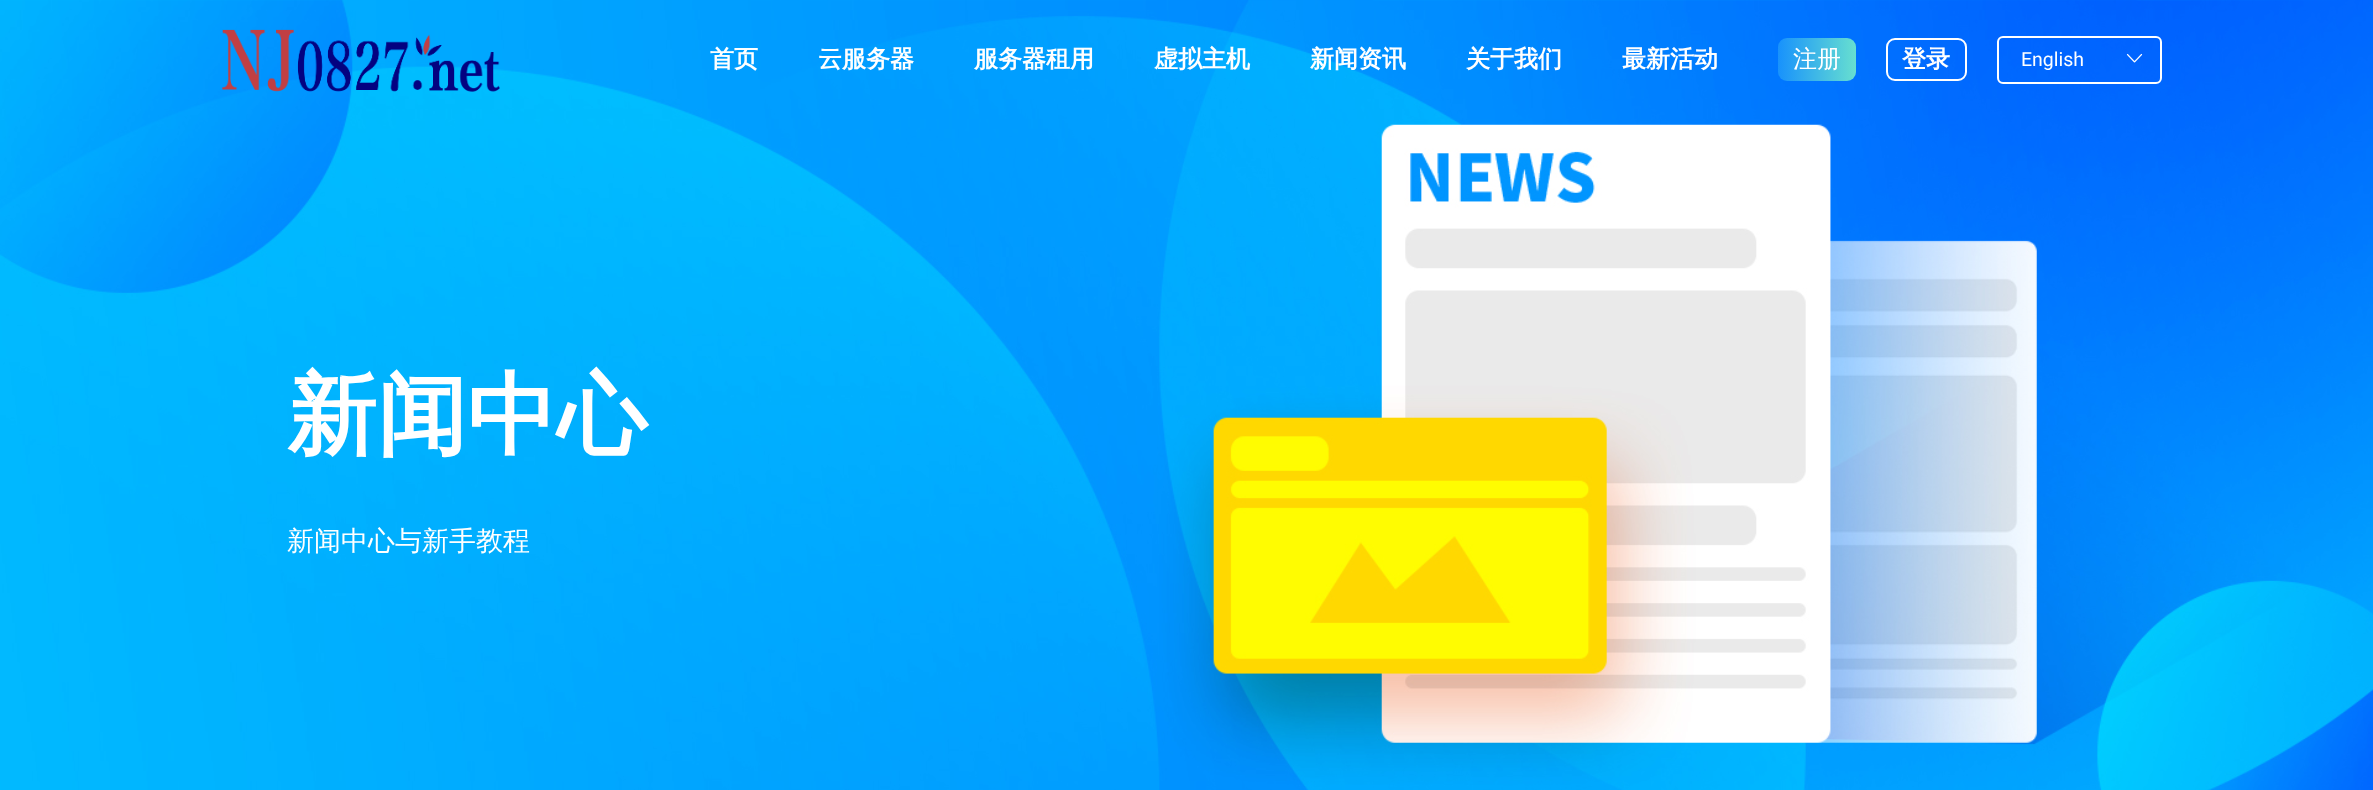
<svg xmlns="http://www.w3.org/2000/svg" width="2373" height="790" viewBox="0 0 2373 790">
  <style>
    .t1 { font: bold 24px WenQuanYi Zen Hei; fill: #fff; }
    .t2 { font: 500 24px WenQuanYi Zen Hei; fill: #fff; }
    .t3 { font: 19.5px Roboto; fill: #fff; }
    .t4 { font: bold 90px WenQuanYi Zen Hei; fill: #fff; }
    .t5 { font: 500 27px WenQuanYi Zen Hei; fill: #fff; }
  </style>
  <defs>
    <linearGradient id="g1" gradientUnits="userSpaceOnUse" x1="1778" y1="59" x2="1856" y2="59"><stop offset="0" stop-color="#1892fc"/><stop offset="1" stop-color="#67dfd0"/></linearGradient>
  </defs>
  <rect width="100%" height="100%" fill="#fff"/>
  <image x="0" y="0" width="2373" height="790" href="images/3.png"/>
  <image x="222" y="29" width="278" height="63" href="images/1.png"/>
  <text x="710" y="67" class="t1">首页</text>
  <text x="818" y="67" class="t1">云服务器</text>
  <text x="974" y="67" class="t1">服务器租用</text>
  <text x="1154" y="67" class="t1">虚拟主机</text>
  <text x="1310" y="67" class="t1">新闻资讯</text>
  <text x="1466" y="67" class="t1">关于我们</text>
  <text x="1622" y="67" class="t1">最新活动</text>
  <rect x="1778" y="38" width="78" height="43" rx="9" fill="url(#g1)"/>
  <text x="1793" y="67" class="t2">注册</text>
  <rect x="1887" y="39" width="79" height="41" rx="8" fill="none" stroke="#fff" stroke-width="2"/>
  <text x="1902" y="67" class="t1">登录</text>
  <rect x="1998" y="37" width="163" height="46" rx="5" fill="none" stroke="#fff" stroke-width="2"/>
  <text x="2021" y="66" class="t3">English</text>
  <image x="2126" y="53" width="17" height="10" href="images/2.png"/>
  <text x="287" y="446" class="t4">新闻中心</text>
  <text x="287" y="550" class="t5">新闻中心与新手教程</text>
</svg>
